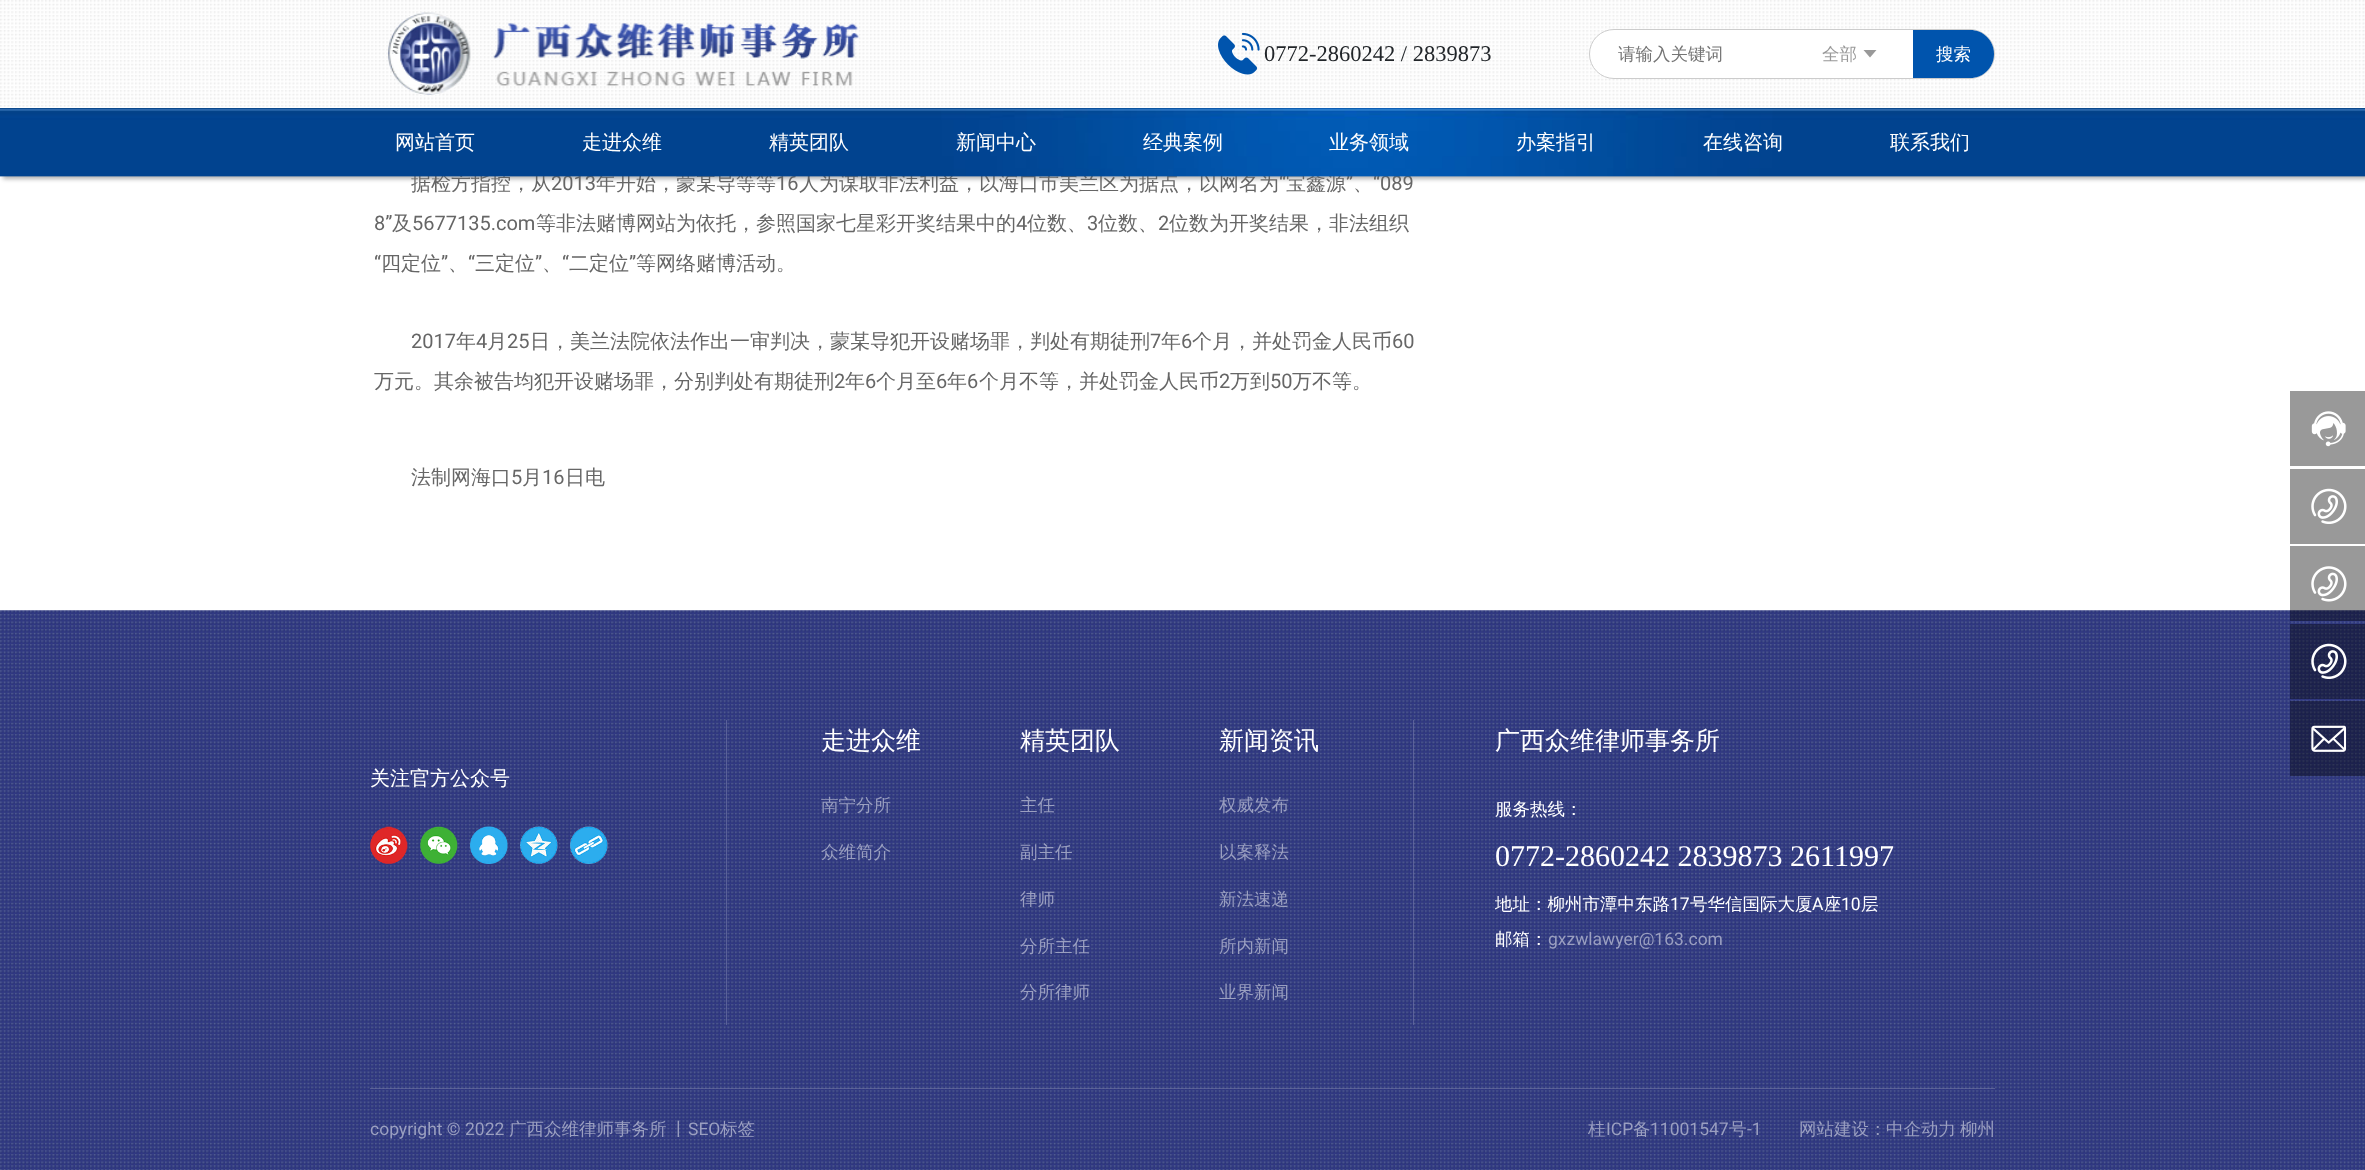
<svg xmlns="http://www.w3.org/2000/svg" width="2365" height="1170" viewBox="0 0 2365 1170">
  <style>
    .t1 { font: 22.5px Liberation Serif; fill: #212529; }
    .t2 { font: 500 17.5px WenQuanYi Zen Hei; fill: #757575; }
    .t3 { font: 500 17.5px WenQuanYi Zen Hei; fill: #999; }
    .t4 { font: 500 17.5px WenQuanYi Zen Hei; fill: #fff; }
    .t5 { font: 500 20px WenQuanYi Zen Hei; fill: #666; }
    .t6 { font: 20px Roboto; fill: #666; }
    .t7 { font: 500 20px WenQuanYi Zen Hei; fill: #fff; }
    .t8 { font: 500 25px WenQuanYi Zen Hei; fill: #fff; }
    .t9 { font: 500 17.5px WenQuanYi Zen Hei; fill: #9a9fc0; }
    .t10 { font: 30px Liberation Serif; fill: #fff; }
    .t11 { font: 17.5px Roboto; fill: #fff; }
    .t12 { font: 17.5px Roboto; fill: #9a9fc0; }
  </style>
  <rect width="100%" height="100%" fill="#fff"/>
  <rect x="3" y="3" width="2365" height="176" fill="#0000004d" filter="blur(2px)"/>
  <rect x="0" y="107" width="2365" height="1" fill="#fff"/>
  <image x="0" y="0" width="2365" height="107" href="images/1.png"/>
  <image x="388" y="12" width="472" height="83" href="images/2.png"/>
  <image x="1218" y="32" width="42" height="43" href="images/3.png"/>
  <text x="1264" y="61" class="t1">0772-2860242 / 2839873</text>
  <rect x="1589.5" y="29.5" width="405" height="49" rx="24.5" fill="#fff" stroke="#ccc"/>
  <text x="1618" y="60" class="t2">请输入关键词</text>
  <text x="1822" y="60" class="t3">全部</text>
  <path d="M1863.5 50L1870 57.5L1876.5 50Z" fill="#999"/>
  <path d="M1913 30H1970C1983.5 30 1994 40.5 1994 54C1994 67.5 1983.5 78 1970 78H1913Z" fill="#0054ad"/>
  <text x="1936" y="60" class="t4">搜索</text>
  <text x="411" y="190" class="t5">据检方指控，从</text>
  <text x="551" y="190" class="t6">2013</text>
  <text x="596" y="190" class="t5">年开始，蒙某导等等</text>
  <text x="776" y="190" class="t6">16</text>
  <text x="799" y="190" class="t5">人为谋取非法利益，以海口市美兰区为据点，以网名为</text>
  <text x="1279" y="190" class="t6">“</text>
  <text x="1286" y="190" class="t5">宝鑫源</text>
  <text x="1346" y="190" class="t6">”</text>
  <text x="1373" y="190" class="t6">“089</text>
  <image x="0" y="108" width="2365" height="69" href="images/4.png"/>
  <text x="395" y="149" class="t7">网站首页</text>
  <text x="582" y="149" class="t7">走进众维</text>
  <text x="769" y="149" class="t7">精英团队</text>
  <text x="956" y="149" class="t7">新闻中心</text>
  <text x="1143" y="149" class="t7">经典案例</text>
  <text x="1329" y="149" class="t7">业务领域</text>
  <text x="1516" y="149" class="t7">办案指引</text>
  <text x="1703" y="149" class="t7">在线咨询</text>
  <text x="1890" y="149" class="t7">联系我们</text>
  <text x="1353" y="190" class="t5">、</text>
  <text x="374" y="230" class="t6">8”</text>
  <text x="392" y="230" class="t5">及</text>
  <text x="412" y="230" class="t6">5677135.com</text>
  <text x="536" y="230" class="t5">等非法赌博网站为依托，参照国家七星彩开奖结果中的</text>
  <text x="1016" y="230" class="t6">4</text>
  <text x="1027" y="230" class="t5">位数、</text>
  <text x="1087" y="230" class="t6">3</text>
  <text x="1098" y="230" class="t5">位数、</text>
  <text x="1158" y="230" class="t6">2</text>
  <text x="1169" y="230" class="t5">位数为开奖结果，非法组织</text>
  <text x="374" y="270" class="t6">“</text>
  <text x="381" y="270" class="t5">四定位</text>
  <text x="441" y="270" class="t6">”</text>
  <text x="468" y="270" class="t6">“</text>
  <text x="475" y="270" class="t5">三定位</text>
  <text x="535" y="270" class="t6">”</text>
  <text x="562" y="270" class="t6">“</text>
  <text x="569" y="270" class="t5">二定位</text>
  <text x="629" y="270" class="t6">”</text>
  <text x="636" y="270" class="t5">等网络赌博活动。</text>
  <text x="448" y="270" class="t5">、</text>
  <text x="542" y="270" class="t5">、</text>
  <text x="411" y="348" class="t6">2017</text>
  <text x="456" y="348" class="t5">年</text>
  <text x="476" y="348" class="t6">4</text>
  <text x="487" y="348" class="t5">月</text>
  <text x="507" y="348" class="t6">25</text>
  <text x="530" y="348" class="t5">日，美兰法院依法作出一审判决，蒙某导犯开设赌场罪，判处有期徒刑</text>
  <text x="1150" y="348" class="t6">7</text>
  <text x="1161" y="348" class="t5">年</text>
  <text x="1181" y="348" class="t6">6</text>
  <text x="1192" y="348" class="t5">个月，并处罚金人民币</text>
  <text x="1392" y="348" class="t6">60</text>
  <text x="374" y="388" class="t5">万元。其余被告均犯开设赌场罪，分别判处有期徒刑</text>
  <text x="834" y="388" class="t6">2</text>
  <text x="845" y="388" class="t5">年</text>
  <text x="865" y="388" class="t6">6</text>
  <text x="876" y="388" class="t5">个月至</text>
  <text x="936" y="388" class="t6">6</text>
  <text x="947" y="388" class="t5">年</text>
  <text x="967" y="388" class="t6">6</text>
  <text x="979" y="388" class="t5">个月不等，并处罚金人民币</text>
  <text x="1219" y="388" class="t6">2</text>
  <text x="1230" y="388" class="t5">万到</text>
  <text x="1270" y="388" class="t6">50</text>
  <text x="1292" y="388" class="t5">万不等。</text>
  <text x="411" y="484" class="t5">法制网海口</text>
  <text x="511" y="484" class="t6">5</text>
  <text x="522" y="484" class="t5">月</text>
  <text x="542" y="484" class="t6">16</text>
  <text x="565" y="484" class="t5">日电</text>
  <image x="0" y="610" width="2365" height="560" href="images/5.png"/>
  <text x="370" y="785" class="t7">关注官方公众号</text>
  <image x="370" y="826" width="38" height="38" href="images/6.png"/>
  <image x="420" y="826" width="38" height="38" href="images/7.png"/>
  <image x="470" y="826" width="38" height="38" href="images/8.png"/>
  <image x="520" y="826" width="38" height="38" href="images/9.png"/>
  <image x="570" y="826" width="38" height="38" href="images/10.png"/>
  <rect x="1413" y="720" width="1" height="305" fill="#ffffff33"/>
  <rect x="726" y="720" width="1" height="305" fill="#ffffff33"/>
  <text x="821" y="749" class="t8">走进众维</text>
  <text x="821" y="811" class="t9">南宁分所</text>
  <text x="821" y="858" class="t9">众维简介</text>
  <text x="1020" y="749" class="t8">精英团队</text>
  <text x="1020" y="811" class="t9">主任</text>
  <text x="1020" y="858" class="t9">副主任</text>
  <text x="1020" y="905" class="t9">律师</text>
  <text x="1020" y="952" class="t9">分所主任</text>
  <text x="1020" y="998" class="t9">分所律师</text>
  <text x="1219" y="749" class="t8">新闻资讯</text>
  <text x="1219" y="811" class="t9">权威发布</text>
  <text x="1219" y="858" class="t9">以案释法</text>
  <text x="1219" y="905" class="t9">新法速递</text>
  <text x="1219" y="952" class="t9">所内新闻</text>
  <text x="1219" y="998" class="t9">业界新闻</text>
  <text x="1495" y="749" class="t8">广西众维律师事务所</text>
  <text x="1495" y="815" class="t4">服务热线：</text>
  <text x="1495" y="866" class="t10">0772-2860242 2839873 2611997</text>
  <text x="1495" y="910" class="t4">地址：柳州市潭中东路</text>
  <text x="1670" y="910" class="t11">17</text>
  <text x="1690" y="910" class="t4">号华信国际大厦</text>
  <text x="1812" y="910" class="t11">A</text>
  <text x="1824" y="910" class="t4">座</text>
  <text x="1841" y="910" class="t11">10</text>
  <text x="1861" y="910" class="t4">层</text>
  <text x="1495" y="945" class="t4">邮箱：</text>
  <text x="1548" y="945" class="t12">gxzwlawyer@163.com</text>
  <rect x="370" y="1088" width="1625" height="1" fill="#ffffff33"/>
  <text x="370" y="1135" class="t12">copyright © 2022</text>
  <text x="509" y="1135" class="t9">广西众维律师事务所</text>
  <text x="670" y="1135" class="t9">丨</text>
  <text x="688" y="1135" class="t12">SEO</text>
  <text x="720" y="1135" class="t9">标签</text>
  <text x="1588" y="1135" class="t9">桂</text>
  <text x="1606" y="1135" class="t12">ICP</text>
  <text x="1633" y="1135" class="t9">备</text>
  <text x="1650" y="1135" class="t12">11001547</text>
  <text x="1729" y="1135" class="t9">号</text>
  <text x="1747" y="1135" class="t12">-1</text>
  <text x="1799" y="1135" class="t9">网站建设：</text>
  <text x="1886" y="1135" class="t9">中企动力</text>
  <text x="1960" y="1135" class="t9">柳州</text>
  <rect x="2290" y="391" width="75" height="75" fill="#999"/>
  <image x="2311" y="411" width="35" height="36" href="images/11.png"/>
  <rect x="2290" y="469" width="75" height="75" fill="#999"/>
  <image x="2311" y="488" width="36" height="36" href="images/12.png"/>
  <rect x="2290" y="546" width="75" height="75" fill="#00000066"/>
  <image x="2311" y="566" width="36" height="36" href="images/13.png"/>
  <rect x="2290" y="624" width="75" height="75" fill="#00000066"/>
  <image x="2311" y="643" width="36" height="36" href="images/14.png"/>
  <rect x="2290" y="701" width="75" height="75" fill="#00000066"/>
  <image x="2311" y="725" width="36" height="27" href="images/15.png"/>
</svg>
